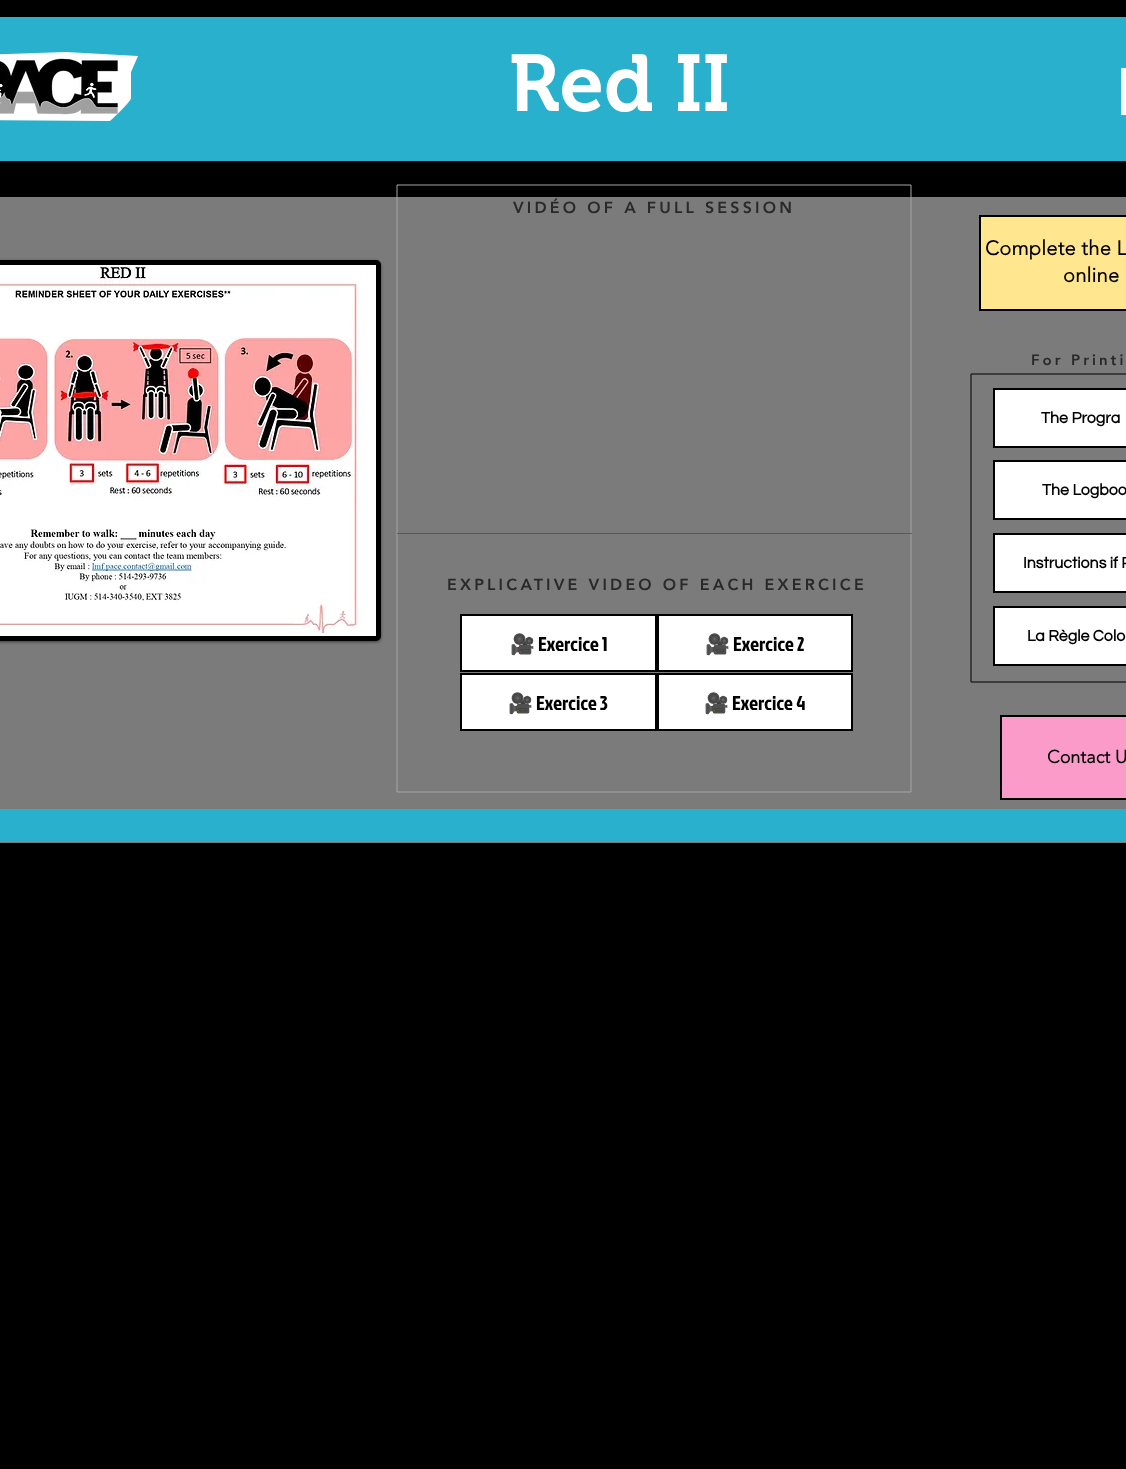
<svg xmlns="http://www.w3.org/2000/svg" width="1126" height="1469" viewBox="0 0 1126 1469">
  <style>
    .t1 { font: 600 80px 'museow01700'; fill: #fff; }
    .t2 { font: 900 16px 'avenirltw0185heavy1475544'; letter-spacing: 3.2px; fill: #292929; }
    .t3 { font: 20px Noto Color Emoji; fill: #000; }
    .t4 { font: 20px Jockey One; fill: #000; }
    .t5 { font: bold 20px 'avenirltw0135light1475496'; letter-spacing: 0.25px; fill: #000; }
    .t6 { font: 900 15px 'avenirltw0185heavy1475544'; letter-spacing: 3px; fill: #292929; }
    .t7 { font: bold 16px Questrial; fill: #000; }
    .t8 { font: bold 18px 'avenirltw0135light1475496'; fill: #000; }
  </style>
  <rect width="100%" height="100%" fill="#000"/>
  <rect x="0" y="17" width="1126" height="144" fill="#28b0cc"/>
  <path d="M-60 78L-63 101L-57 120L110 121C110 121 131 102 131 98V72L138 56L66 52L-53 56Z" fill="#fff"/>
  <image x="0" y="58" width="118" height="57" href="images/1.png"/>
  <text x="509" y="111" class="t1">Red II</text>
  <rect x="1121" y="68" width="5" height="47" fill="#fff"/>
  <rect x="0" y="197" width="1126" height="646" fill="#7b7b7b"/>
  <path d="M911 185V792H397V185Z" fill="none" stroke="#a6a6a6"/>
  <text x="513" y="213" class="t2">VIDÉO OF A FULL SESSION</text>
  <rect x="397" y="533" width="515" height="1" fill="#42424299"/>
  <text x="447" y="590" class="t2">EXPLICATIVE VIDEO OF EACH EXERCICE</text>
  <rect x="461" y="615" width="195" height="56" fill="#fff" stroke="#000" stroke-width="2"/>
  <text x="510" y="651" class="t3">🎥</text>
  <text x="538" y="651" class="t4">Exercice 1</text>
  <rect x="658" y="615" width="194" height="56" fill="#fff" stroke="#000" stroke-width="2"/>
  <text x="705" y="651" class="t3">🎥</text>
  <text x="733" y="651" class="t4">Exercice 2</text>
  <rect x="461" y="674" width="195" height="56" fill="#fff" stroke="#000" stroke-width="2"/>
  <text x="508" y="710" class="t3">🎥</text>
  <text x="536" y="710" class="t4">Exercice 3</text>
  <rect x="658" y="674" width="194" height="56" fill="#fff" stroke="#000" stroke-width="2"/>
  <text x="704" y="710" class="t3">🎥</text>
  <text x="732" y="710" class="t4">Exercice 4</text>
  <rect x="980" y="216" width="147" height="94" fill="#ffe68f" stroke="#000" stroke-width="2"/>
  <rect x="-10" y="261" width="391" height="381" rx="5" fill="#00000080" filter="blur(1.5px)"/>
  <rect x="-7.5" y="262.5" width="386" height="376" rx="2.5" fill="none" stroke="#000" stroke-width="5"/>
  <image x="0" y="265" width="376" height="371" href="images/2.png"/>
  <text x="985" y="255" class="t5">Complete the L</text>
  <text x="1063" y="282" class="t5">online</text>
  <text x="1031" y="365" class="t6">For Printi</text>
  <path d="M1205 374V682H971V374Z" fill="none" stroke="#000"/>
  <rect x="994" y="389" width="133" height="58" fill="#fff" stroke="#000" stroke-width="2"/>
  <text x="1041" y="423" class="t7">The Progra</text>
  <rect x="994" y="461" width="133" height="58" fill="#fff" stroke="#000" stroke-width="2"/>
  <text x="1042" y="495" class="t7">The Logboo</text>
  <rect x="994" y="534" width="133" height="58" fill="#fff" stroke="#000" stroke-width="2"/>
  <text x="1023" y="568" class="t7">Instructions if P</text>
  <rect x="994" y="607" width="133" height="58" fill="#fff" stroke="#000" stroke-width="2"/>
  <text x="1027" y="641" class="t7">La Règle Colo</text>
  <rect x="1001" y="716" width="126" height="83" fill="#fa9bc9" stroke="#000" stroke-width="2"/>
  <text x="1047" y="763" class="t8">Contact U</text>
  <rect x="0" y="809" width="1126" height="33" fill="#28b0cc"/>
</svg>
